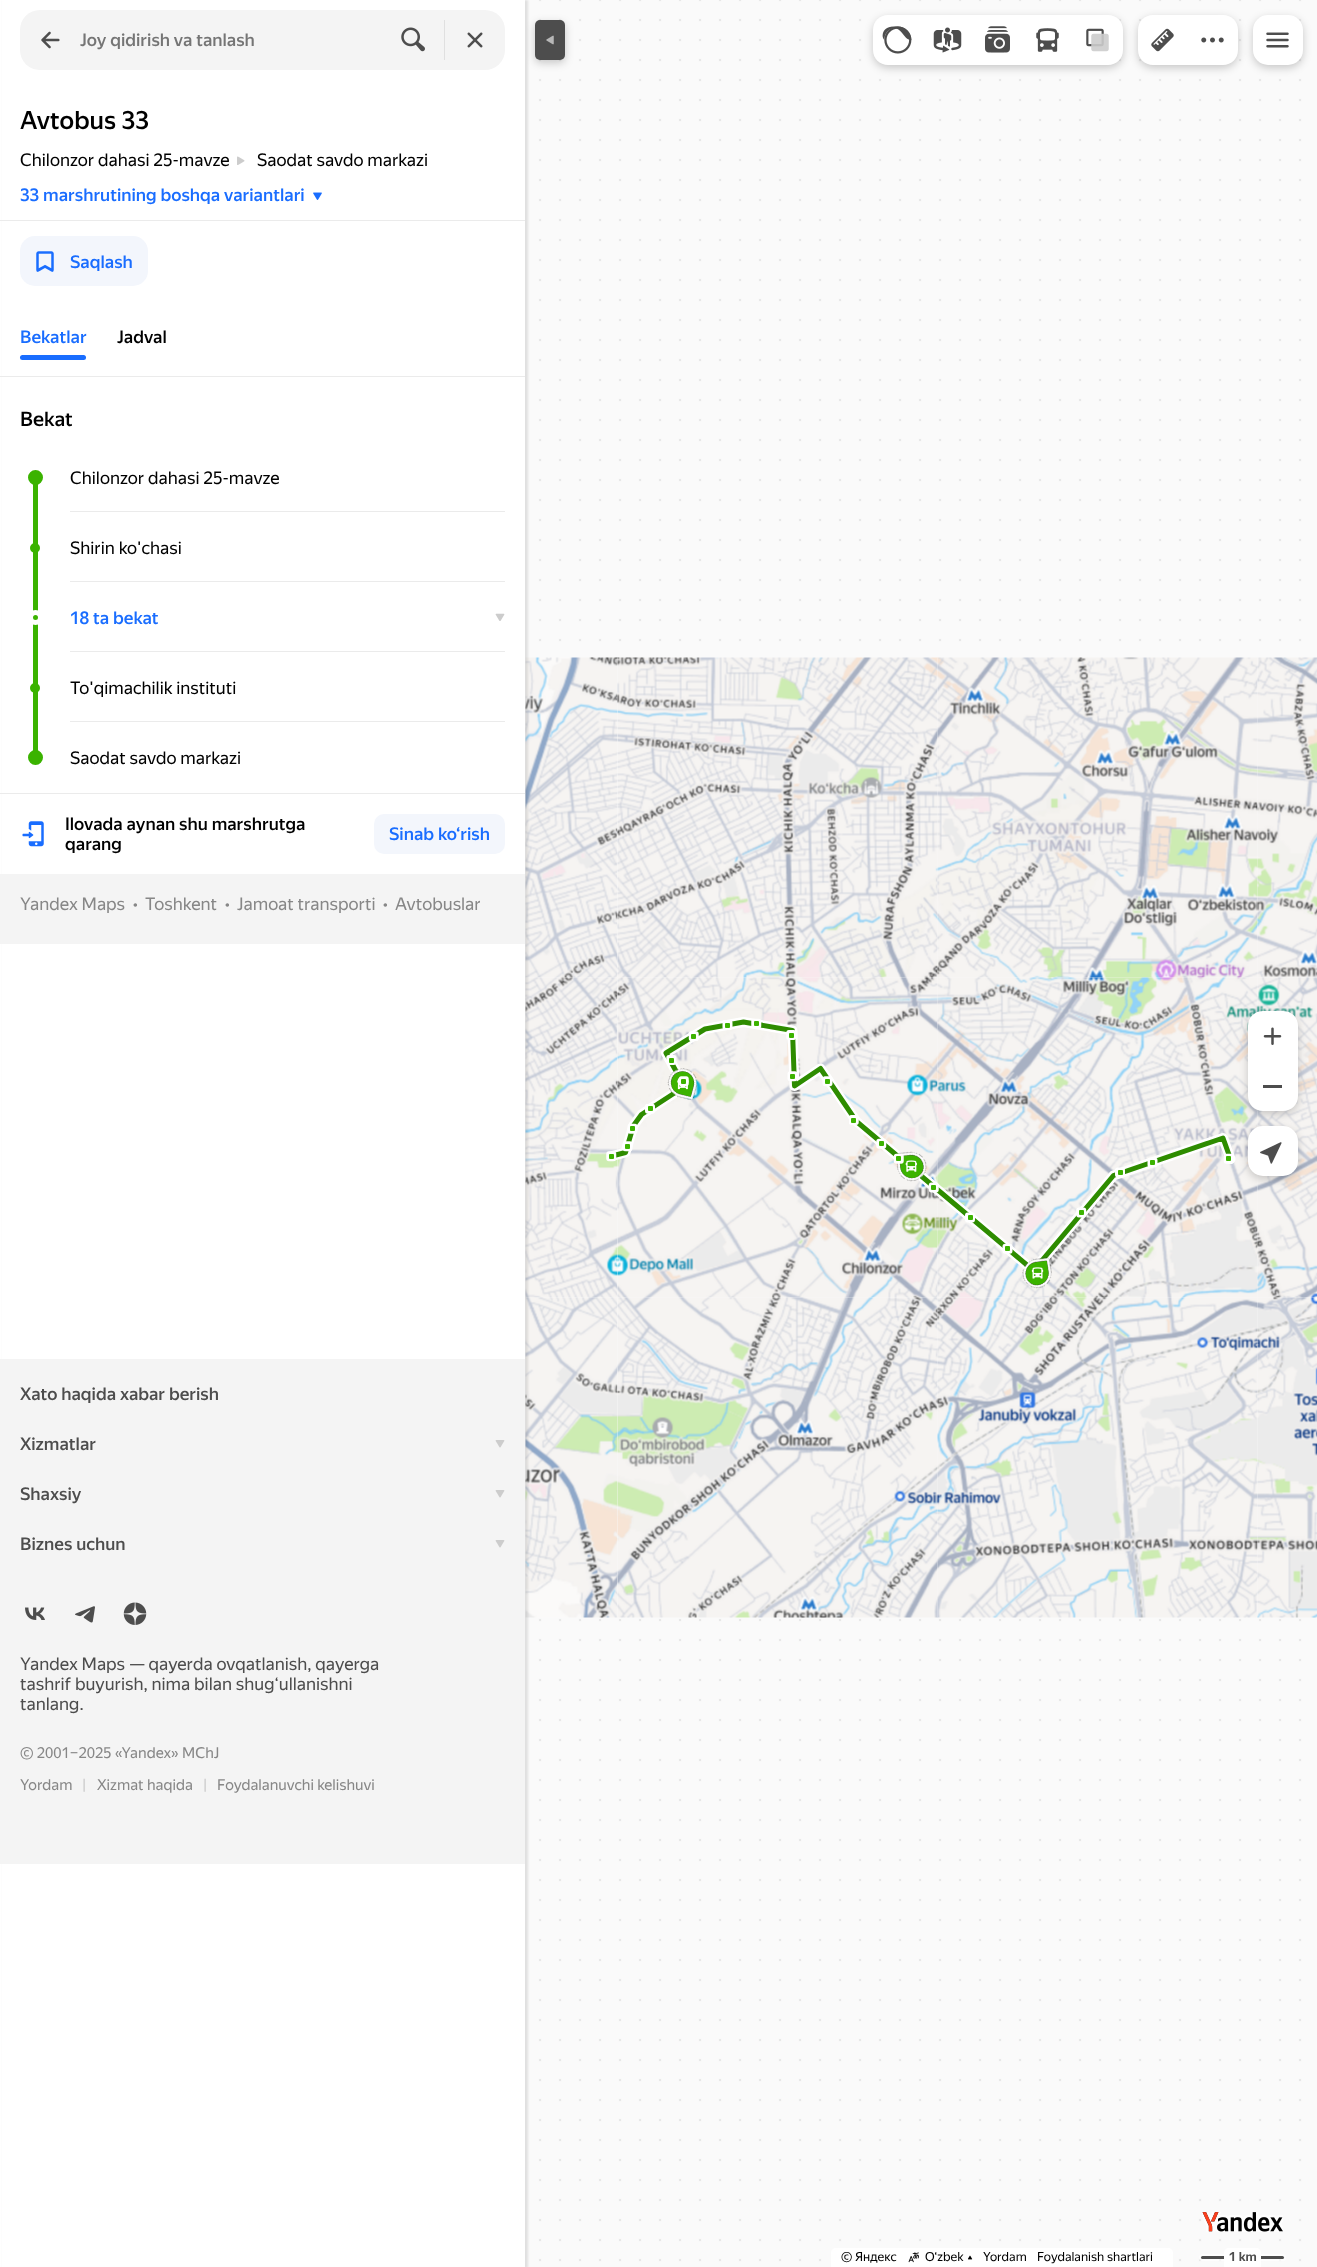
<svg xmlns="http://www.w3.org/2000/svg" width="1317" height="2267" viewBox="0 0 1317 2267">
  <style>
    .t1 { font: 500 17.5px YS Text; fill: #757575; }
    .t2 { font: 500 25px YS Text; fill: #000; }
    .t3 { font: 17.5px YS Text; fill: #000; }
    .t4 { font: 500 17.5px YS Text; fill: #196dff; }
    .t5 { font: 500 17.5px YS Text; fill: #000; }
    .t6 { font: 500 20px YS Text; fill: #000; }
    .t7 { font: 17.5px YS Text; fill: #878787; }
    .t8 { font: 500 17.5px YS Text; fill: #4d4d4d; }
    .t9 { font: 17.5px YS Text; fill: #4d4d4d; }
    .t10 { font: 15px YS Text; fill: #878787; }
    .t11 { font: 15px YS Text; fill: #ccc; }
    .t12 { font: 12.5px YS Text; fill: #000; }
    .t13 { font: bold 12.5px YS Text; fill: #4d4d4d; }
  </style>
  <rect width="100%" height="100%" fill="#fff"/>
  <image x="525" y="0" width="792" height="2267" href="images/1.png"/>
  <image x="525" y="657" width="93" height="321" href="images/28.png"/>
  <image x="617" y="657" width="321" height="321" href="images/29.png"/>
  <image x="525" y="977" width="93" height="321" href="images/32.png"/>
  <image x="937" y="657" width="321" height="321" href="images/30.png"/>
  <image x="617" y="977" width="321" height="321" href="images/33.png"/>
  <image x="525" y="1297" width="93" height="321" href="images/36.png"/>
  <rect x="3" y="0" width="525" height="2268" fill="#0000001a" filter="blur(1px)"/>
  <rect x="535" y="23" width="30" height="40" rx="5" fill="#00000033" filter="blur(4px)"/>
  <rect x="2" y="0" width="523" height="2267" fill="#fff"/>
  <rect x="20" y="10" width="485" height="60" rx="20" fill="#f4f4f4"/>
  <image x="41" y="31" width="19" height="18" href="images/2.png"/>
  <text x="80" y="46" class="t1">Joy qidirish va tanlash</text>
  <image x="401" y="27" width="24" height="25" href="images/3.png"/>
  <rect x="444" y="20" width="1" height="40" fill="#e0e0e0"/>
  <image x="467" y="32" width="16" height="16" href="images/4.png"/>
  <rect x="873" y="18" width="250" height="50" rx="15" fill="#00000033" filter="blur(4px)"/>
  <path d="M888 15H923V65H888C879.5 65 873 58.5 873 50V30C873 21.5 879.5 15 888 15Z" fill="#fff"/>
  <image x="882" y="26" width="30" height="28" href="images/5.png"/>
  <rect x="923" y="15" width="150" height="50" fill="#fff"/>
  <image x="933" y="27" width="29" height="26" href="images/6.png"/>
  <path d="M1073 15H1108C1116.5 15 1123 21.5 1123 30V50C1123 58.5 1116.5 65 1108 65H1073Z" fill="#fff"/>
  <image x="1086" y="28" width="23" height="24" href="images/7.png"/>
  <image x="985" y="26" width="25" height="27" href="images/8.png"/>
  <image x="1036" y="28" width="23" height="24" href="images/9.png"/>
  <rect x="1138" y="18" width="100" height="50" rx="15" fill="#00000033" filter="blur(4px)"/>
  <path d="M1153 15H1188V65H1153C1144.5 65 1138 58.5 1138 50V30C1138 21.5 1144.5 15 1153 15Z" fill="#fff"/>
  <image x="1151" y="28" width="23" height="24" href="images/10.png"/>
  <path d="M1188 15H1223C1231.5 15 1238 21.5 1238 30V50C1238 58.5 1231.5 65 1223 65H1188Z" fill="#fff"/>
  <image x="1201" y="37" width="23" height="6" href="images/11.png"/>
  <rect x="1253" y="18" width="50" height="50" rx="15" fill="#00000033" filter="blur(4px)"/>
  <rect x="1253" y="15" width="50" height="50" rx="15" fill="#fff"/>
  <image x="1266" y="32" width="23" height="16" href="images/12.png"/>
  <image x="1257" y="657" width="60" height="321" href="images/31.png"/>
  <image x="937" y="977" width="321" height="321" href="images/34.png"/>
  <image x="1257" y="977" width="60" height="321" href="images/35.png"/>
  <path d="M612 1156L625.5 1152.5L633.5 1125.5L641.5 1114.5L684.5 1086.5L666 1053L705 1029L743.5 1022L792.5 1030.5L794.5 1086L820.5 1068.5L856.5 1121.5L1033.5 1270.5L1113.5 1175.5L1223 1138L1230.5 1159" fill="none" stroke="#fff" stroke-width="10" stroke-linecap="round" stroke-linejoin="round"/>
  <rect x="1248" y="1014" width="50" height="100" rx="15" fill="#00000033" filter="blur(4px)"/>
  <path d="M1263 1011H1283C1291.5 1011 1298 1017.5 1298 1026V1061H1248V1026C1248 1017.5 1254.5 1011 1263 1011Z" fill="#fff"/>
  <image x="1263" y="1027" width="19" height="18" href="images/13.png"/>
  <path d="M1248 1061H1298V1096C1298 1104.5 1291.5 1111 1283 1111H1263C1254.5 1111 1248 1104.5 1248 1096Z" fill="#fff"/>
  <rect x="1263" y="1085" width="19" height="3" fill="#4d4d4d"/>
  <rect x="1248" y="1129" width="50" height="50" rx="15" fill="#00000033" filter="blur(4px)"/>
  <rect x="1248" y="1126" width="50" height="50" rx="15" fill="#fff"/>
  <image x="1260" y="1142" width="22" height="22" href="images/14.png"/>
  <rect x="535" y="20" width="30" height="40" rx="5" fill="#4d4d4d"/>
  <image x="546" y="35" width="8" height="10" href="images/15.png"/>
  <text x="20" y="129" class="t2">Avtobus 33</text>
  <text x="20" y="166" class="t3">Chilonzor dahasi 25-mavze</text>
  <image x="237" y="156" width="8" height="9" href="images/16.png"/>
  <text x="257" y="166" class="t3">Saodat savdo markazi</text>
  <text x="20" y="201" class="t4">33 marshrutining boshqa variantlari</text>
  <image x="313" y="192" width="9" height="8" href="images/17.png"/>
  <rect x="0" y="220" width="525" height="1" fill="#ebebeb"/>
  <rect x="20" y="236" width="128" height="50" rx="15" fill="#f3f6fc"/>
  <image x="36" y="251" width="18" height="21" href="images/18.png"/>
  <text x="70" y="268" class="t4">Saqlash</text>
  <text x="20" y="343" class="t4">Bekatlar</text>
  <text x="117" y="343" class="t5">Jadval</text>
  <rect x="20" y="355" width="66" height="5" rx="2.5" fill="#196dff"/>
  <rect x="0" y="376" width="525" height="1" fill="#ebebeb"/>
  <text x="20" y="426" class="t6">Bekat</text>
  <rect x="33" y="478" width="5" height="280" fill="#3bb300"/>
  <circle cx="35.5" cy="477.5" r="6" fill="#3bb300" stroke="#3bb300" stroke-width="3"/>
  <text x="70" y="484" class="t3">Chilonzor dahasi 25-mavze</text>
  <rect x="70" y="511" width="435" height="1" fill="#ebebeb"/>
  <circle cx="35" cy="548" r="3.5" fill="#3bb300" stroke="#3bb300" stroke-width="3"/>
  <text x="70" y="554" class="t3">Shirin ko'chasi</text>
  <rect x="70" y="581" width="435" height="1" fill="#ebebeb"/>
  <circle cx="35.5" cy="617.5" r="5" fill="#3bb300" stroke="#fff" stroke-width="5"/>
  <text x="70" y="624" class="t4">18 ta bekat</text>
  <image x="495" y="613" width="10" height="8" href="images/19.png"/>
  <rect x="70" y="651" width="435" height="1" fill="#ebebeb"/>
  <circle cx="35" cy="688" r="3.5" fill="#3bb300" stroke="#3bb300" stroke-width="3"/>
  <text x="70" y="694" class="t3">To'qimachilik instituti</text>
  <rect x="70" y="721" width="435" height="1" fill="#ebebeb"/>
  <circle cx="35.5" cy="757.5" r="6" fill="#3bb300" stroke="#3bb300" stroke-width="3"/>
  <text x="70" y="764" class="t3">Saodat savdo markazi</text>
  <rect x="0" y="793" width="525" height="1" fill="#ebebeb"/>
  <image x="22" y="821" width="22" height="26" href="images/20.png"/>
  <text x="65" y="830" class="t5">Ilovada aynan shu marshrutga</text>
  <text x="65" y="850" class="t5">qarang</text>
  <rect x="374" y="814" width="131" height="40" rx="10" fill="#f3f6fc"/>
  <text x="389" y="840" class="t4">Sinab ko‘rish</text>
  <rect x="0" y="874" width="525" height="70" fill="#f4f4f4"/>
  <text x="20" y="910" class="t7">Yandex Maps</text>
  <text x="133" y="910" class="t7">•</text>
  <text x="145" y="910" class="t7">Toshkent</text>
  <text x="225" y="910" class="t7">•</text>
  <text x="237" y="910" class="t7">Jamoat transporti</text>
  <text x="383" y="910" class="t7">•</text>
  <text x="395" y="910" class="t7">Avtobuslar</text>
  <rect x="0" y="1359" width="525" height="505" fill="#f4f4f4"/>
  <text x="20" y="1400" class="t8">Xato haqida xabar berish</text>
  <text x="20" y="1450" class="t8">Xizmatlar</text>
  <image x="495" y="1440" width="10" height="8" href="images/21.png"/>
  <text x="20" y="1500" class="t8">Shaxsiy</text>
  <image x="495" y="1490" width="10" height="8" href="images/21.png"/>
  <text x="20" y="1550" class="t8">Biznes uchun</text>
  <image x="495" y="1540" width="10" height="8" href="images/21.png"/>
  <image x="25" y="1607" width="20" height="13" href="images/22.png"/>
  <image x="75" y="1606" width="20" height="17" href="images/23.png"/>
  <image x="123" y="1602" width="24" height="23" href="images/24.png"/>
  <text x="20" y="1670" class="t9">Yandex Maps — qayerda ovqatlanish, qayerga</text>
  <text x="20" y="1690" class="t9">tashrif buyurish, nima bilan shug‘ullanishni</text>
  <text x="20" y="1710" class="t9">tanlang.</text>
  <text x="20" y="1758" class="t10">© 2001–2025 «Yandex» MChJ</text>
  <text x="20" y="1790" class="t10">Yordam</text>
  <text x="82" y="1790" class="t11">|</text>
  <text x="97" y="1790" class="t10">Xizmat haqida</text>
  <text x="203" y="1790" class="t11">|</text>
  <text x="217" y="1790" class="t10">Foydalanuvchi kelishuvi</text>
  <image x="1202" y="2212" width="81" height="20" href="images/25.png"/>
  <path d="M836 2248H1168C1171 2248 1173 2250 1173 2253V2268H831V2253C831 2250 833 2248 836 2248Z" fill="#fff"/>
  <text x="841" y="2261" class="t12">© Яндекс</text>
  <image x="908" y="2252" width="11" height="11" href="images/26.png"/>
  <text x="925" y="2261" class="t12">O‘zbek</text>
  <image x="968" y="2255" width="5" height="5" href="images/27.png"/>
  <text x="983" y="2261" class="t12">Yordam</text>
  <text x="1037" y="2261" class="t12">Foydalanish shartlari</text>
  <rect x="1199" y="2254" width="87" height="7" rx="3.5" fill="#ffffff99"/>
  <rect x="1201" y="2256" width="83" height="3" rx="1.5" fill="#4d4d4d"/>
  <path d="M1229 2248H1256C1259 2248 1261 2250 1261 2253V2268H1224V2253C1224 2250 1226 2248 1229 2248Z" fill="#fff"/>
  <text x="1229" y="2261" class="t13">1 km</text>
  <image x="617" y="1297" width="321" height="321" href="images/37.png"/>
  <image x="937" y="1297" width="321" height="321" href="images/38.png"/>
  <image x="1257" y="1297" width="60" height="321" href="images/39.png"/>
  <path d="M612 1156L625.5 1152.5L633.5 1125.5L641.5 1114.5L684.5 1086.5L666 1053L705 1029L743.5 1022L792.5 1030.5L794.5 1086L820.5 1068.5L856.5 1121.5L1033.5 1270.5L1113.5 1175.5L1223 1138L1230.5 1159" fill="none" stroke="#2e8c00" stroke-width="5" stroke-linecap="round" stroke-linejoin="round"/>
  <image x="722" y="1020" width="11" height="10" href="images/40.png"/>
  <image x="751" y="1018" width="11" height="10" href="images/41.png"/>
  <image x="688" y="1031" width="11" height="10" href="images/42.png"/>
  <image x="786" y="1030" width="10" height="10" href="images/43.png"/>
  <image x="666" y="1055" width="11" height="10" href="images/44.png"/>
  <image x="667" y="1068" width="31" height="32" href="images/45.png"/>
  <image x="677" y="1078" width="12" height="12" href="images/46.png"/>
  <image x="787" y="1071" width="10" height="11" href="images/47.png"/>
  <image x="678" y="1076" width="11" height="11" href="images/48.png"/>
  <image x="822" y="1076" width="11" height="11" href="images/49.png"/>
  <image x="645" y="1104" width="10" height="10" href="images/50.png"/>
  <image x="849" y="1115" width="10" height="10" href="images/51.png"/>
  <image x="627" y="1123" width="11" height="11" href="images/52.png"/>
  <image x="622" y="1141" width="11" height="11" href="images/53.png"/>
  <image x="876" y="1138" width="11" height="11" href="images/54.png"/>
  <image x="606" y="1151" width="11" height="11" href="images/55.png"/>
  <image x="896" y="1151" width="31" height="31" href="images/56.png"/>
  <image x="905" y="1160" width="12" height="12" href="images/57.png"/>
  <image x="893" y="1153" width="11" height="11" href="images/58.png"/>
  <image x="1147" y="1157" width="11" height="11" href="images/59.png"/>
  <image x="1223" y="1153" width="10" height="11" href="images/60.png"/>
  <image x="1115" y="1167" width="10" height="11" href="images/61.png"/>
  <image x="928" y="1182" width="11" height="11" href="images/62.png"/>
  <image x="965" y="1212" width="10" height="11" href="images/63.png"/>
  <image x="1076" y="1207" width="11" height="11" href="images/64.png"/>
  <image x="1002" y="1243" width="11" height="11" href="images/65.png"/>
  <image x="1022" y="1257" width="30" height="32" href="images/66.png"/>
  <image x="1031" y="1267" width="13" height="12" href="images/67.png"/>
</svg>
